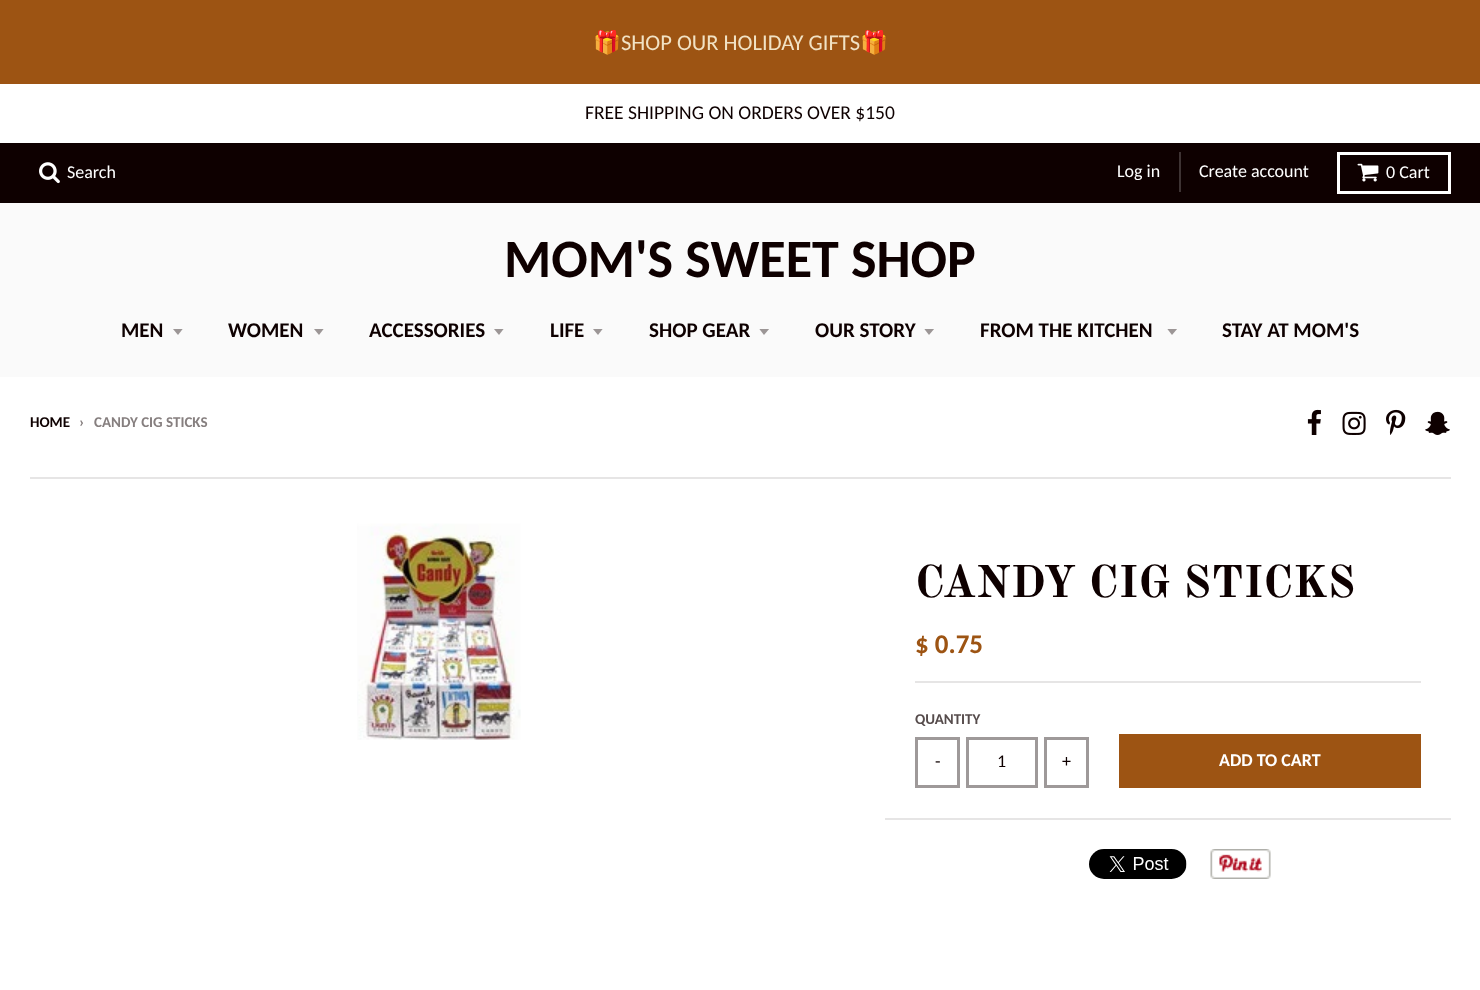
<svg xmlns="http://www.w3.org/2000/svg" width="1480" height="990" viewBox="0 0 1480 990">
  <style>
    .t1 { font: 22.5px Noto Color Emoji; fill: #f1e2c4; }
    .t2 { font: 22.5px Carlito; fill: #f1e2c4; }
    .t3 { font: 19.5px Carlito; fill: #0e0000; }
    .t4 { font: 18px Carlito; fill: #fff; }
    .t5 { font: bold 54px Carlito; fill: #0e0000; }
    .t6 { font: bold 21px Carlito; fill: #0e0000; }
    .t7 { font: bold 15px Carlito; fill: #0e0000; }
    .t8 { font: bold 15px Carlito; fill: #867f7f; }
    .t9 { font: bold 45px Old Standard TT; fill: #0e0000; }
    .t10 { font: bold 27px Carlito; fill: #9d5413; }
    .t11 { font: bold 15px Carlito; fill: #564c4c; }
    .t12 { font: 18px Carlito; fill: #0e0000; }
    .t13 { font: bold 18px Carlito; fill: #fff; }
  </style>
  <defs>
    <clipPath id="clip1"><rect x="173" y="329" width="12" height="7"/></clipPath>
    <clipPath id="clip2"><rect x="314" y="329" width="12" height="7"/></clipPath>
    <clipPath id="clip3"><rect x="494" y="329" width="12" height="7"/></clipPath>
    <clipPath id="clip4"><rect x="593" y="329" width="12" height="7"/></clipPath>
    <clipPath id="clip5"><rect x="759" y="329" width="12" height="7"/></clipPath>
    <clipPath id="clip6"><rect x="924" y="329" width="12" height="7"/></clipPath>
    <clipPath id="clip7"><rect x="1167" y="329" width="12" height="7"/></clipPath>
  </defs>
  <rect width="100%" height="100%" fill="#fff"/>
  <rect x="0" y="0" width="1480" height="84" fill="#9d5413"/>
  <text x="593" y="50" class="t1">🎁</text>
  <text x="621" y="50" class="t2">SHOP OUR HOLIDAY GIFTS</text>
  <text x="860" y="50" class="t1">🎁</text>
  <text x="585" y="119" class="t3">FREE SHIPPING ON ORDERS OVER $150</text>
  <rect x="0" y="143" width="1480" height="60" fill="#0e0000"/>
  <image x="39" y="162" width="21" height="22" href="images/1.png"/>
  <text x="67" y="178" class="t4">Search</text>
  <rect x="1179" y="152" width="2" height="40" fill="#3e3333"/>
  <text x="1117" y="177" class="t4">Log in</text>
  <text x="1199" y="177" class="t4">Create account</text>
  <rect x="1338.5" y="153.5" width="111" height="39" fill="none" stroke="#fff" stroke-width="3"/>
  <image x="1357" y="163" width="22" height="19" href="images/2.png"/>
  <text x="1386" y="178" class="t4">0 Cart</text>
  <rect x="0" y="203" width="1480" height="174" fill="#fafafa"/>
  <text x="504" y="277" class="t5">MOM'S SWEET SHOP</text>
  <text x="121" y="337" class="t6">MEN</text>
  <g clip-path="url(#clip1)">
    <path d="M172.5 328.5L178 335L183 328.5Z" fill="#9c9696"/>
  </g>
  <text x="228" y="337" class="t6">WOMEN</text>
  <g clip-path="url(#clip2)">
    <path d="M313.5 328.5L319 335L324 328.5Z" fill="#9c9696"/>
  </g>
  <text x="369" y="337" class="t6">ACCESSORIES</text>
  <g clip-path="url(#clip3)">
    <path d="M493.5 328.5L499 335L504 328.5Z" fill="#9c9696"/>
  </g>
  <text x="550" y="337" class="t6">LIFE</text>
  <g clip-path="url(#clip4)">
    <path d="M592.5 328.5L598 335L603 328.5Z" fill="#9c9696"/>
  </g>
  <text x="649" y="337" class="t6">SHOP GEAR</text>
  <g clip-path="url(#clip5)">
    <path d="M759 328.5L764 335L769.5 328.5Z" fill="#9c9696"/>
  </g>
  <text x="815" y="337" class="t6">OUR STORY</text>
  <g clip-path="url(#clip6)">
    <path d="M924 328.5L929 335L934.5 328.5Z" fill="#9c9696"/>
  </g>
  <text x="980" y="337" class="t6">FROM THE KITCHEN</text>
  <g clip-path="url(#clip7)">
    <path d="M1167 328.5L1172 335L1177.5 328.5Z" fill="#9c9696"/>
  </g>
  <text x="1222" y="337" class="t6">STAY AT MOM'S</text>
  <text x="30" y="427" class="t7">HOME</text>
  <text x="79" y="427" class="t8">›</text>
  <text x="94" y="427" class="t8">CANDY CIG STICKS</text>
  <image x="1307" y="409" width="14" height="26" href="images/3.png"/>
  <image x="1342" y="411" width="24" height="24" href="images/4.png"/>
  <image x="1386" y="409" width="20" height="26" href="images/5.png"/>
  <image x="1425" y="411" width="25" height="24" href="images/6.png"/>
  <rect x="30" y="477" width="1421" height="2" fill="#e6e5e5"/>
  <image x="357" y="523" width="164" height="217" href="images/7.png"/>
  <rect x="885" y="818" width="566" height="2" fill="#e6e5e5"/>
  <text x="915" y="597" class="t9">CANDY CIG STICKS</text>
  <rect x="915" y="681" width="506" height="2" fill="#e6e5e5"/>
  <text x="915" y="653" class="t10">$ 0.75</text>
  <text x="915" y="724" class="t11">QUANTITY</text>
  <rect x="916.5" y="738.5" width="42" height="48" fill="none" stroke="#9e9999" stroke-width="3"/>
  <text x="935" y="767" class="t12">-</text>
  <rect x="967.5" y="738.5" width="69" height="48" fill="none" stroke="#9e9999" stroke-width="3"/>
  <text x="997" y="767" class="t12">1</text>
  <rect x="1045.5" y="738.5" width="42" height="48" fill="none" stroke="#9e9999" stroke-width="3"/>
  <text x="1062" y="767" class="t12">+</text>
  <rect x="1119" y="734" width="302" height="54" fill="#9d5413"/>
  <text x="1219" y="766" class="t13">ADD TO CART</text>
  <image x="1089" y="849" width="98" height="30" href="images/8.png"/>
  <image x="1210" y="849" width="61" height="30" href="images/9.png"/>
</svg>
